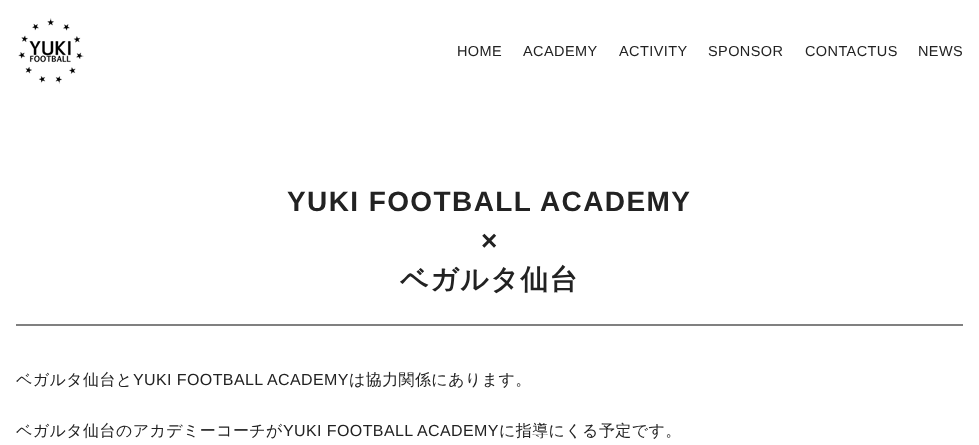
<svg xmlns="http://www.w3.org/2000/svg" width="979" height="445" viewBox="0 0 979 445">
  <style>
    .t1 { font: 14.5px Liberation Sans; letter-spacing: 0.4px; fill: #222; }
    .t2 { font: bold 28px Liberation Sans; letter-spacing: 1.4px; fill: #222; }
    .t3 { font: bold 28px WenQuanYi Zen Hei; letter-spacing: 1.4px; fill: #222; }
    .t4 { font: 500 16px WenQuanYi Zen Hei; letter-spacing: 0.4px; fill: #222; }
    .t5 { font: 16px Liberation Sans; letter-spacing: 0.4px; fill: #222; }
  </style>
  <rect width="100%" height="100%" fill="#fff"/>
  <image x="18" y="18" width="66" height="66" href="images/1.png"/>
  <text x="457" y="56" class="t1">HOME</text>
  <text x="523" y="56" class="t1">ACADEMY</text>
  <text x="619" y="56" class="t1">ACTIVITY</text>
  <text x="708" y="56" class="t1">SPONSOR</text>
  <text x="805" y="56" class="t1">CONTACTUS</text>
  <text x="918" y="56" class="t1">NEWS</text>
  <text x="287" y="211" class="t2">YUKI FOOTBALL ACADEMY</text>
  <text x="481" y="250" class="t2">×</text>
  <text x="400" y="289" class="t3">ベガルタ仙台</text>
  <rect x="16" y="324" width="947" height="2" fill="#808080"/>
  <text x="16" y="385" class="t4">ベガルタ仙台と</text>
  <text x="133" y="385" class="t5">YUKI FOOTBALL ACADEMY</text>
  <text x="349" y="385" class="t4">は協力関係にあります。</text>
  <text x="16" y="436" class="t4">ベガルタ仙台のアカデミーコーチが</text>
  <text x="283" y="436" class="t5">YUKI FOOTBALL ACADEMY</text>
  <text x="499" y="436" class="t4">に指導にくる予定です。</text>
</svg>
